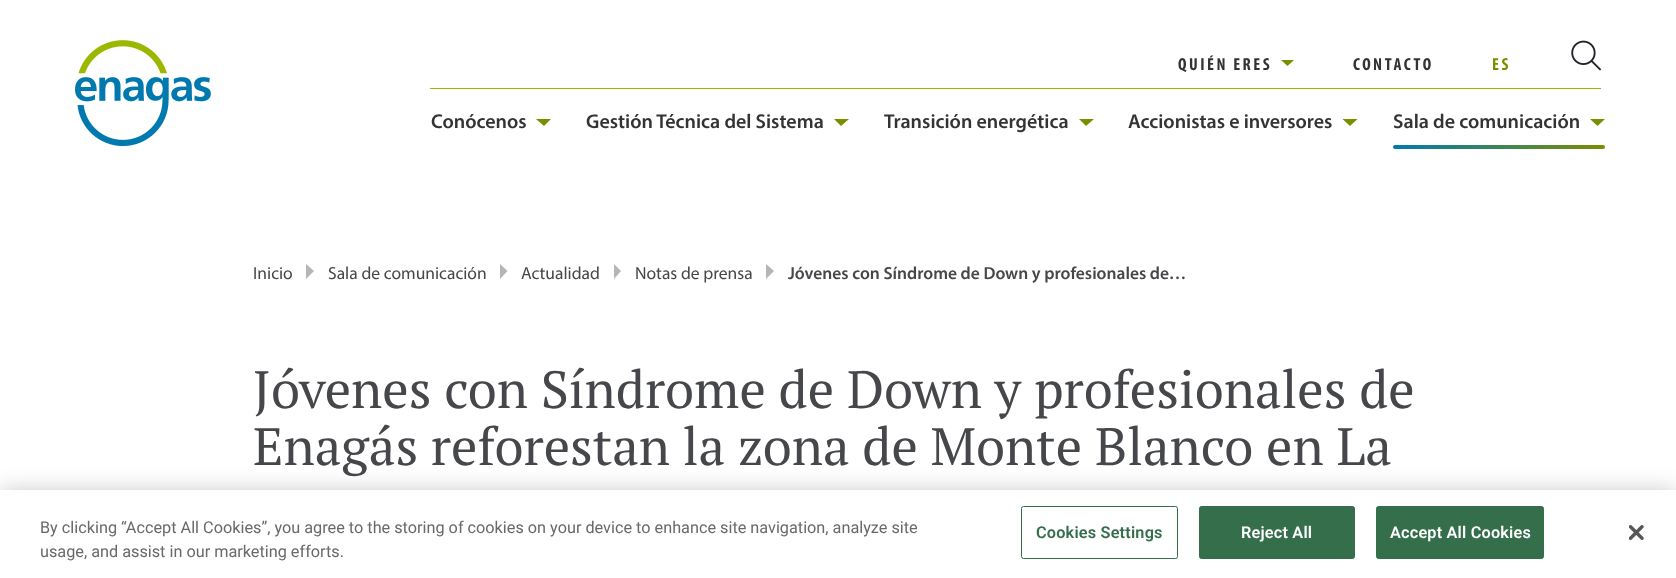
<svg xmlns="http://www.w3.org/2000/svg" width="1676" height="578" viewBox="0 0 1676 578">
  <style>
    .t1 { font: bold 17.5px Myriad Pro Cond; letter-spacing: 2.5px; fill: #333; }
    .t2 { font: bold 17.5px Myriad Pro Cond; letter-spacing: 2.5px; fill: #798f00; }
    .t3 { font: 600 20px Myriad; fill: #333; }
    .t4 { font: 17.5px Myriad; fill: #45474a; }
    .t5 { font: 600 17.5px Myriad; fill: #45474a; }
    .t6 { font: 52.5px PT Serif; fill: #45474a; }
    .t7 { font: 16.25px Roboto; fill: #696969; }
    .t8 { font: 600 16.25px Roboto; letter-spacing: 0.2px; fill: #346e4a; }
    .t9 { font: 600 16.25px Roboto; letter-spacing: 0.2px; fill: #fff; }
  </style>
  <defs>
    <linearGradient id="g1" gradientUnits="userSpaceOnUse" x1="1393" y1="147" x2="1605" y2="147"><stop offset="0" stop-color="#007aae"/><stop offset="1" stop-color="#798f00"/></linearGradient>
  </defs>
  <rect width="100%" height="100%" fill="#fff"/>
  <image x="75" y="40" width="136" height="106" href="images/1.png"/>
  <text x="1178" y="70" class="t1">QUIÉN ERES</text>
  <path d="M1281 60H1294L1287.5 66Z" fill="#798f00"/>
  <text x="1353" y="70" class="t1">CONTACTO</text>
  <text x="1492" y="70" class="t2">ES</text>
  <image x="1571" y="40" width="31" height="31" href="images/2.png"/>
  <rect x="430" y="88" width="1171" height="1" fill="#9cb700"/>
  <text x="431" y="128" class="t3">Conócenos</text>
  <path d="M536 119H551L544 126Z" fill="#798f00"/>
  <text x="586" y="128" class="t3">Gestión Técnica del Sistema</text>
  <path d="M834 119H849L841 126Z" fill="#798f00"/>
  <text x="884" y="128" class="t3">Transición energética</text>
  <path d="M1079 119H1094L1086 126Z" fill="#798f00"/>
  <text x="1128" y="128" class="t3">Accionistas e inversores</text>
  <path d="M1342.5 119H1357.5L1350 126Z" fill="#798f00"/>
  <text x="1393" y="128" class="t3">Sala de comunicación</text>
  <path d="M1590 119H1605L1597.5 126Z" fill="#798f00"/>
  <rect x="1393" y="145" width="212" height="4" rx="2" fill="url(#g1)"/>
  <text x="253" y="279" class="t4">Inicio</text>
  <path d="M306 279V264L314 271Z" fill="#b5b5b5"/>
  <text x="328" y="279" class="t4">Sala de comunicación</text>
  <path d="M500 279V264L507.5 271Z" fill="#b5b5b5"/>
  <text x="521" y="279" class="t4">Actualidad</text>
  <path d="M614 279V264L621 271Z" fill="#b5b5b5"/>
  <text x="635" y="279" class="t4">Notas de prensa</text>
  <path d="M766 279V264L774 271Z" fill="#b5b5b5"/>
  <text x="788" y="279" class="t5">Jóvenes con Síndrome de Down y profesionales de…</text>
  <text x="253" y="408" class="t6">Jóvenes con Síndrome de Down y profesionales de</text>
  <text x="253" y="465" class="t6">Enagás reforestan la zona de Monte Blanco en La</text>
  <rect x="0" y="490" width="1676" height="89" fill="#00000033" filter="blur(11px)"/>
  <rect x="0" y="490" width="1676" height="88" fill="#fff"/>
  <text x="40" y="533" class="t7">By clicking “Accept All Cookies”, you agree to the storing of cookies on your device to enhance site navigation, analyze site</text>
  <text x="40" y="557" class="t7">usage, and assist in our marketing efforts.</text>
  <rect x="1021.5" y="506.5" width="156" height="52" rx="2" fill="none" stroke="#346e4a"/>
  <text x="1036" y="538" class="t8">Cookies Settings</text>
  <rect x="1199.5" y="506.5" width="155" height="52" rx="2" fill="#346e4a" stroke="#346e4a"/>
  <text x="1241" y="538" class="t9">Reject All</text>
  <rect x="1376.5" y="506.5" width="167" height="52" rx="2" fill="#346e4a" stroke="#346e4a"/>
  <text x="1390" y="538" class="t9">Accept All Cookies</text>
  <image x="1629" y="525" width="15" height="15" href="images/3.png"/>
</svg>
